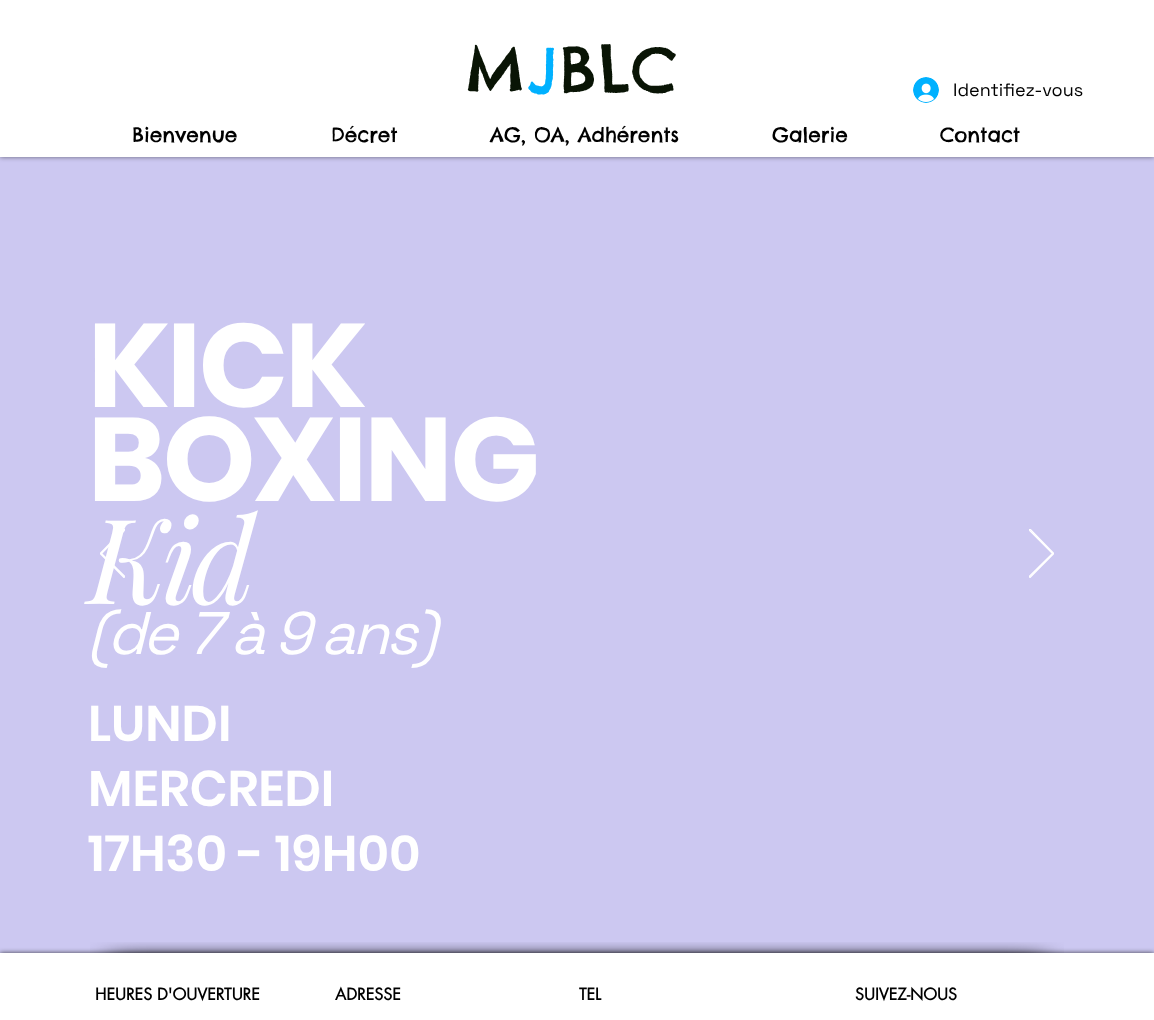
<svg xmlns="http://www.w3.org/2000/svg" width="1154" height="1020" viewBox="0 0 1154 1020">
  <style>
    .t1 { font: 63px Chelsea Market; letter-spacing: 2px; fill: #091405; }
    .t2 { font: 63px Chelsea Market; letter-spacing: 2px; fill: #00b1ff; }
    .t3 { font: 18px Space Grotesk; fill: #000; }
    .t4 { font: 20px Chelsea Market; fill: #000; }
    .t5 { font: bold 118px Poppins; letter-spacing: -2.5px; fill: #fff; }
    .t6 { font: italic 118px Playfair Display; letter-spacing: -6px; fill: #fff; }
    .t7 { font: italic 60px Space Grotesk; letter-spacing: -3px; fill: #fff; }
    .t8 { font: 600 50px Poppins; fill: #fff; }
    .t9 { font: bold 16px futura; fill: #000; }
  </style>
  <defs>
    <clipPath id="clip1"><rect x="100" y="529" width="25" height="49"/></clipPath>
    <clipPath id="clip2"><rect x="1029" y="529" width="25" height="49"/></clipPath>
  </defs>
  <rect width="100%" height="100%" fill="#ccc8f1"/>
  <rect x="0" y="0" width="1154" height="157" fill="#00000080" filter="blur(2.5px)"/>
  <rect x="0" y="0" width="1154" height="157" fill="#fff"/>
  <text x="465" y="93" class="t1">M</text>
  <text x="528" y="93" class="t2">J</text>
  <text x="559" y="93" class="t1">BLC</text>
  <image x="913" y="77" width="26" height="26" href="images/1.png"/>
  <text x="953" y="96" class="t3">Identifiez-vous</text>
  <text x="132" y="142" class="t4">Bienvenue</text>
  <text x="331" y="142" class="t4">Décret</text>
  <text x="490" y="142" class="t4">AG, OA, Adhérents</text>
  <text x="772" y="142" class="t4">Galerie</text>
  <text x="940" y="142" class="t4">Contact</text>
  <text x="88" y="407" class="t5">KICK</text>
  <text x="88" y="501" class="t5">BOXING</text>
  <text x="88" y="604" class="t6">Kid</text>
  <text x="88" y="654" class="t7">(de 7 à 9 ans)</text>
  <text x="88" y="741" class="t8">LUNDI</text>
  <text x="88" y="806" class="t8">MERCREDI</text>
  <text x="88" y="871" class="t8">17H30 - 19H00</text>
  <g clip-path="url(#clip1)">
    <path d="M124 577.5L100 553.5L124 529L125 530L101.5 553.5L125 576.5Z" fill="none" stroke="#fff" stroke-width="1.2"/>
  </g>
  <g clip-path="url(#clip2)">
    <path d="M1030 577.5L1054 553.5L1030 529L1029 530L1052.5 553.5L1029 576.5Z" fill="none" stroke="#fff" stroke-width="1.2"/>
  </g>
  <rect x="0" y="953" width="1154" height="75" fill="#000000b3" filter="blur(2.5px)"/>
  <rect x="0" y="953" width="1154" height="67" fill="#fff"/>
  <image x="90" y="942" width="97" height="11" href="images/2.png"/>
  <image x="187" y="942" width="780" height="11" href="images/3.png"/>
  <image x="967" y="942" width="97" height="11" href="images/4.png"/>
  <text x="95" y="1000" class="t9">HEURES D'OUVERTURE</text>
  <text x="335" y="1000" class="t9">ADRESSE</text>
  <text x="579" y="1000" class="t9">TEL</text>
  <text x="855" y="1000" class="t9">SUIVEZ-NOUS</text>
</svg>
